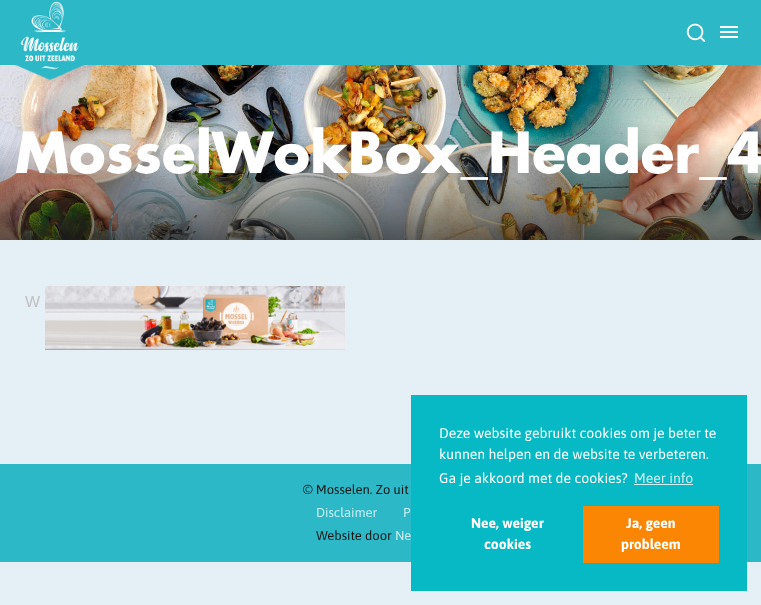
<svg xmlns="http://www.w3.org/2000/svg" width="761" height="605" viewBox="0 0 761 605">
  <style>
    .t1 { font: bold 55px Futura; fill: #fff; }
    .t2 { font: 16px Liberation Sans; fill: #c0c0c2; }
    .t3 { font: 13px Asap; fill: #191817; }
    .t4 { font: 13px Asap; fill: #caedf1; }
    .t5 { font: 14px Asap; fill: #fff; }
    .t6 { font: 14px Asap; fill: #caedf1; }
    .t7 { font: bold 14px Asap; fill: #fff; }
  </style>
  <rect width="100%" height="100%" fill="#e5eff6"/>
  <rect x="0" y="0" width="761" height="65" fill="#2cb8c7"/>
  <image x="0" y="65" width="761" height="175" href="images/4.png"/>
  <image x="15" y="1" width="70" height="80" href="images/1.png"/>
  <image x="686" y="23" width="20" height="19" href="images/2.png"/>
  <image x="720" y="26" width="18" height="12" href="images/3.png"/>
  <text x="15" y="173" class="t1">MosselWokBox_Header_4</text>
  <image x="45" y="286" width="300" height="64" href="images/5.png"/>
  <text x="25" y="307" class="t2">W</text>
  <rect x="0" y="464" width="761" height="98" fill="#2cb8c7"/>
  <text x="303" y="494" class="t3">© Mosselen. Zo uit</text>
  <text x="316" y="517" class="t4">Disclaimer</text>
  <text x="403" y="517" class="t4">P</text>
  <text x="316" y="540" class="t3">Website door</text>
  <text x="395" y="540" class="t4">Ne</text>
  <rect x="411" y="395" width="336" height="196" fill="#07b9c5"/>
  <text x="439" y="438" class="t5">Deze website gebruikt cookies om je beter te</text>
  <text x="439" y="459" class="t5">kunnen helpen en de website te verbeteren.</text>
  <text x="439" y="483" class="t5">Ga je akkoord met de cookies?</text>
  <text x="634" y="483" class="t6">Meer info</text>
  <rect x="634" y="484" width="59" height="1" fill="#cdf1f3"/>
  <text x="471" y="528" class="t7">Nee, weiger</text>
  <text x="484" y="549" class="t7">cookies</text>
  <rect x="583" y="506" width="136" height="57" fill="#fa8603"/>
  <text x="626" y="528" class="t7">Ja, geen</text>
  <text x="621" y="549" class="t7">probleem</text>
</svg>
